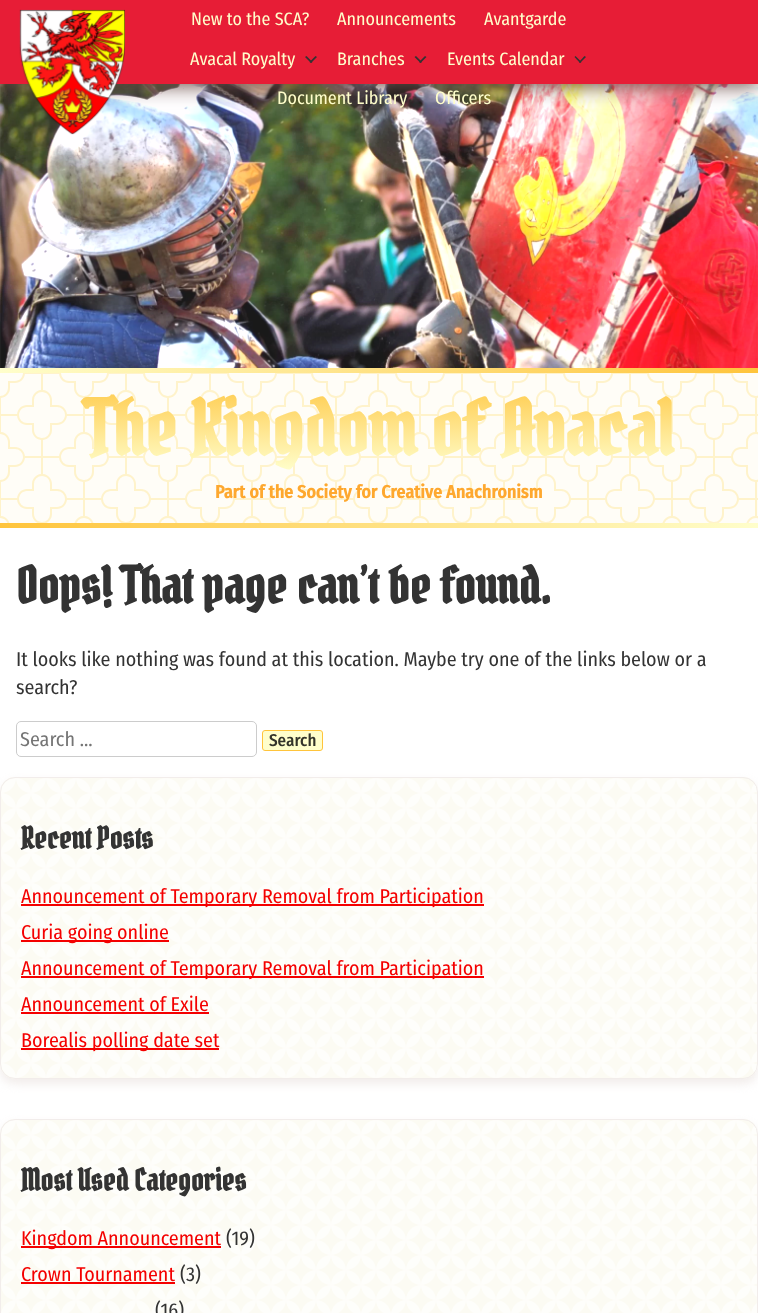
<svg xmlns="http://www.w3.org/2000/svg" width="758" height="1313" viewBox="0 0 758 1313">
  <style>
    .t1 { font: 18px Fira Sans Condensed; fill: #fffecb; }
    .t2 { font: bold 75px Pirata One; fill: url(#g1); }
    .t3 { font: bold 18px Fira Sans Condensed; fill: #fea82f; }
    .t4 { font: bold 50px Pirata One; fill: #333; }
    .t5 { font: 20px Fira Sans Condensed; fill: #333; }
    .t6 { font: 20px Fira Sans Condensed; fill: #757575; }
    .t7 { font: 500 17px Fira Sans Condensed; fill: #333329; }
    .t8 { font: bold 30px Pirata One; fill: #333; }
    .t9 { font: 20px Fira Sans Condensed; fill: #f40000; }
  </style>
  <defs>
    <linearGradient id="g1" gradientUnits="userSpaceOnUse" x1="379" y1="373" x2="379" y2="471"><stop offset="0" stop-color="#ffc43b"/><stop offset="1" stop-color="#fffecb"/></linearGradient>
  </defs>
  <rect width="100%" height="100%" fill="#fff"/>
  <image x="0" y="84" width="758" height="284" href="images/3.png"/>
  <rect x="0" y="2" width="758" height="84" fill="#6a4e46" filter="blur(10px)"/>
  <rect x="0" y="0" width="758" height="84" fill="#e71d36"/>
  <image x="19" y="9" width="106" height="126" href="images/1.png"/>
  <text x="191" y="25" class="t1">New to the SCA?</text>
  <text x="337" y="25" class="t1">Announcements</text>
  <text x="484" y="25" class="t1">Avantgarde</text>
  <text x="190" y="65" class="t1">Avacal Royalty</text>
  <path d="M315.5 56L317 57L311 63L309.5 62Z" fill="#333"/>
  <path d="M306.5 56L312.5 62L311 63L305 57Z" fill="#333"/>
  <text x="337" y="65" class="t1">Branches</text>
  <path d="M425 56L426.5 57L420.5 63L419 62Z" fill="#333"/>
  <path d="M416 56L422 62L420.5 63L414.5 57Z" fill="#333"/>
  <text x="447" y="65" class="t1">Events Calendar</text>
  <path d="M584.5 56L586 57L580 63L579 62Z" fill="#333"/>
  <path d="M575.5 56L581.5 62L580 63L574.5 57Z" fill="#333"/>
  <text x="277" y="104" class="t1">Document Library</text>
  <text x="435" y="104" class="t1">Officers</text>
  <image x="0" y="368" width="758" height="5" href="images/2.png"/>
  <rect x="0" y="373" width="758" height="150" fill="#fffdf7"/>
  <image x="0" y="373" width="758" height="150" href="images/4.png"/>
  <text x="85" y="456" class="t2">The Kingdom of Avacal</text>
  <text x="215" y="498" class="t3">Part of the Society for Creative Anachronism</text>
  <image x="0" y="523" width="758" height="5" href="images/5.png"/>
  <text x="16" y="604" class="t4">Oops! That page can’t be found.</text>
  <text x="16" y="666" class="t5">It looks like nothing was found at this location. Maybe try one of the links below or a</text>
  <text x="16" y="694" class="t5">search?</text>
  <rect x="16.5" y="721.5" width="240" height="35" rx="4.5" fill="none" stroke="#ccc"/>
  <text x="20" y="746" class="t6">Search …</text>
  <rect x="262.5" y="730.5" width="60" height="20" rx="2.5" fill="#fffecb" stroke="#ffc43b"/>
  <text x="269" y="746" class="t7">Search</text>
  <rect x="0" y="782" width="758" height="302" rx="15" fill="#f2edeb" filter="blur(5px)"/>
  <rect x="0" y="777" width="758" height="302" rx="15" fill="#fcfbf3"/>
  <image x="0" y="777" width="758" height="302" href="images/6.png"/>
  <rect x="0.5" y="777.5" width="757" height="301" rx="14.5" fill="none" stroke="#f2edeb"/>
  <text x="21" y="849" class="t8">Recent Posts</text>
  <rect x="21" y="904" width="463" height="2" fill="#f40000"/>
  <text x="21" y="903" class="t9">Announcement of Temporary Removal from Participation</text>
  <rect x="21" y="940" width="148" height="2" fill="#f40000"/>
  <text x="21" y="939" class="t9">Curia going online</text>
  <rect x="21" y="976" width="463" height="2" fill="#f40000"/>
  <text x="21" y="975" class="t9">Announcement of Temporary Removal from Participation</text>
  <text x="21" y="1011" class="t9">Announcement of Exile</text>
  <rect x="21" y="1012" width="188" height="2" fill="#f40000"/>
  <rect x="21" y="1048" width="198" height="2" fill="#f40000"/>
  <text x="21" y="1047" class="t9">Borealis polling date set</text>
  <rect x="0" y="1124" width="758" height="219" rx="15" fill="#f2edeb" filter="blur(5px)"/>
  <rect x="0" y="1119" width="758" height="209" rx="15" fill="#fcfbf3"/>
  <image x="0" y="1119" width="758" height="194" href="images/7.png"/>
  <rect x="0.5" y="1119.5" width="757" height="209" rx="14.5" fill="none" stroke="#f2edeb"/>
  <text x="21" y="1191" class="t8">Most Used Categories</text>
  <rect x="21" y="1246" width="200" height="2" fill="#f40000"/>
  <text x="21" y="1245" class="t9">Kingdom Announcement</text>
  <text x="226" y="1245" class="t5">(19)</text>
  <text x="21" y="1281" class="t9">Crown Tournament</text>
  <rect x="21" y="1282" width="154" height="2" fill="#f40000"/>
  <text x="180" y="1281" class="t5">(3)</text>
  <text x="155" y="1317" class="t5">(16)</text>
</svg>
